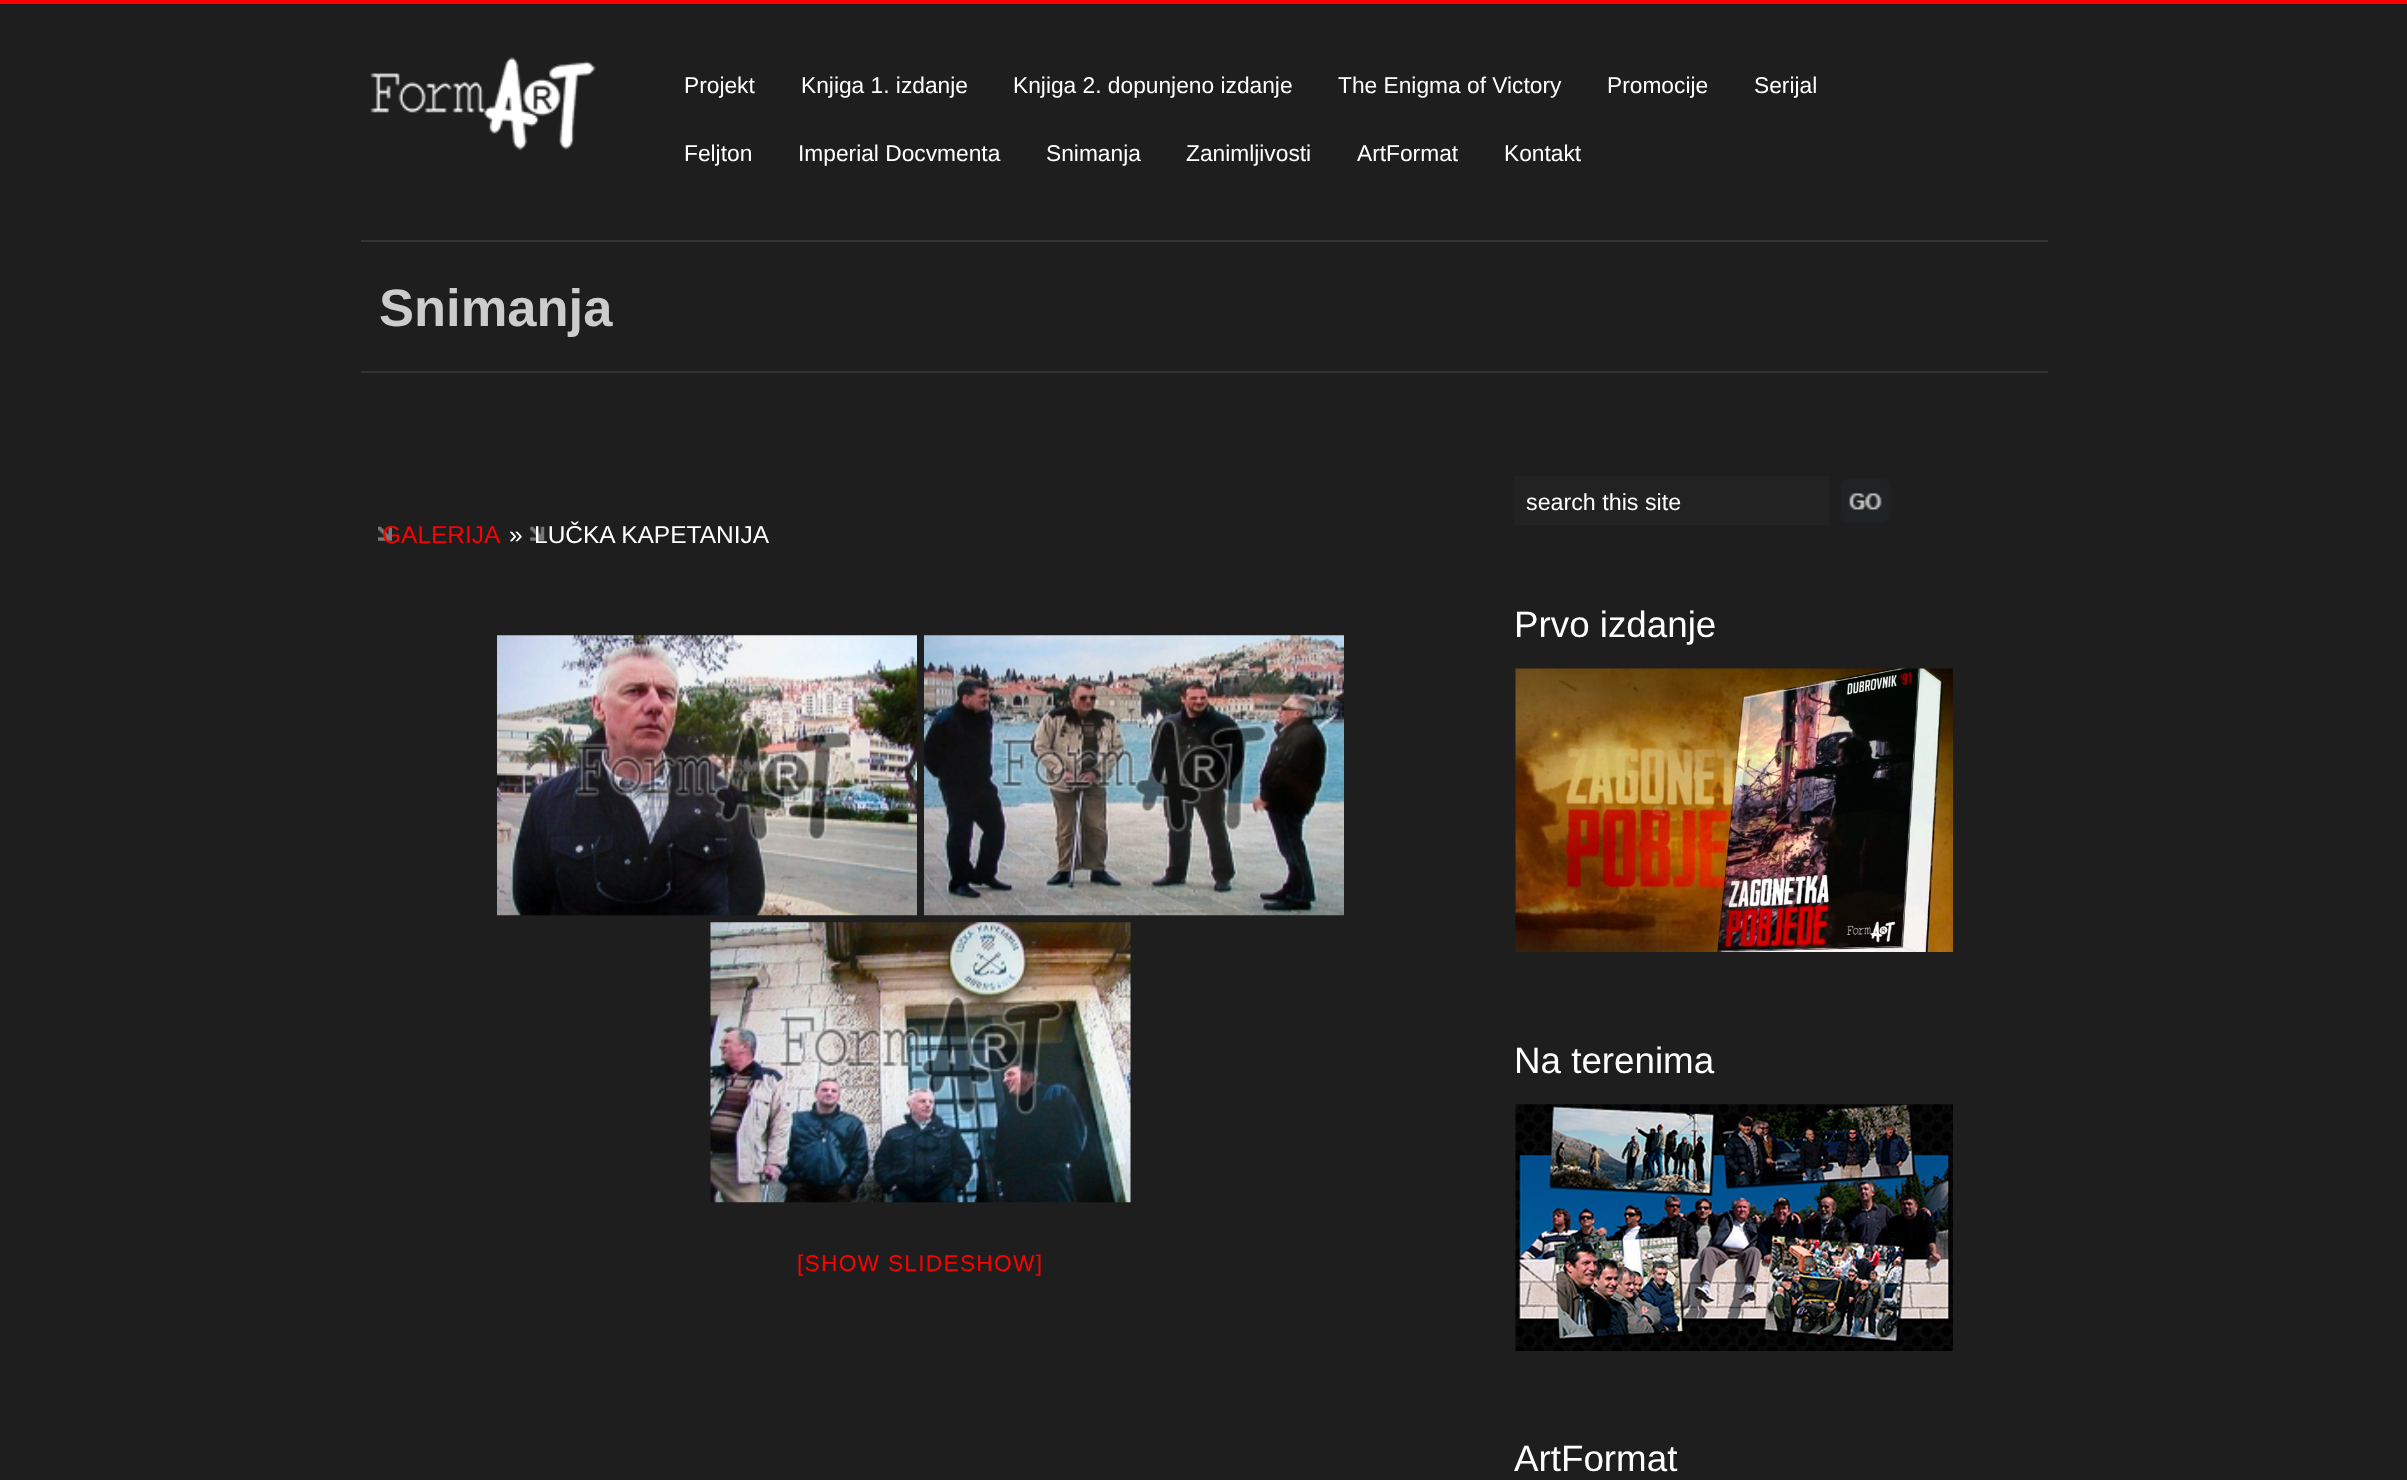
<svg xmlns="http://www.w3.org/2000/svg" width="2407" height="1480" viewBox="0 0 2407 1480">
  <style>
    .t1 { font: 22.75px Liberation Sans; fill: #fff; }
    .t2 { font: bold 52.5px Liberation Sans; fill: #ccc; }
    .t3 { font: 24.5px Liberation Sans; fill: #f00; }
    .t4 { font: 24.5px Liberation Sans; fill: #fff; }
    .t5 { font: 22.75px Liberation Sans; letter-spacing: 1.25px; fill: #f00; }
    .t6 { font: 23.25px Liberation Sans; fill: #fff; }
    .t7 { font: 36.75px Liberation Sans; fill: #fff; }
  </style>
  <rect width="100%" height="100%" fill="#1e1e1e"/>
  <rect x="0" y="0" width="2407" height="4" fill="#f00"/>
  <image x="370" y="57" width="226" height="94" href="images/1.png"/>
  <text x="684" y="93" class="t1">Projekt</text>
  <text x="801" y="93" class="t1">Knjiga 1. izdanje</text>
  <text x="1013" y="93" class="t1">Knjiga 2. dopunjeno izdanje</text>
  <text x="1338" y="93" class="t1">The Enigma of Victory</text>
  <text x="1607" y="93" class="t1">Promocije</text>
  <text x="1754" y="93" class="t1">Serijal</text>
  <text x="684" y="161" class="t1">Feljton</text>
  <text x="798" y="161" class="t1">Imperial Docvmenta</text>
  <text x="1046" y="161" class="t1">Snimanja</text>
  <text x="1186" y="161" class="t1">Zanimljivosti</text>
  <text x="1357" y="161" class="t1">ArtFormat</text>
  <text x="1504" y="161" class="t1">Kontakt</text>
  <rect x="361" y="240" width="1687" height="2" fill="#333"/>
  <text x="379" y="326" class="t2">Snimanja</text>
  <rect x="361" y="371" width="1687" height="2" fill="#333"/>
  <image x="378" y="526" width="14" height="15" href="images/2.png"/>
  <text x="382" y="543" class="t3">GALERIJA</text>
  <text x="509" y="543" class="t4">»</text>
  <image x="530" y="526" width="15" height="15" href="images/3.png"/>
  <text x="534" y="543" class="t4">LUČKA KAPETANIJA</text>
  <image x="497" y="635" width="420" height="281" href="images/4.png"/>
  <image x="924" y="635" width="420" height="281" href="images/5.png"/>
  <image x="710" y="922" width="421" height="281" href="images/6.png"/>
  <text x="797" y="1271" class="t5">[SHOW SLIDESHOW]</text>
  <rect x="1514" y="476" width="315" height="49" fill="#222"/>
  <text x="1526" y="510" class="t6">search this site</text>
  <image x="1841" y="478" width="49" height="45" href="images/7.png"/>
  <text x="1514" y="637" class="t7">Prvo izdanje</text>
  <image x="1515" y="668" width="438" height="284" href="images/8.png"/>
  <text x="1514" y="1073" class="t7">Na terenima</text>
  <image x="1515" y="1104" width="438" height="247" href="images/9.png"/>
  <text x="1514" y="1471" class="t7">ArtFormat</text>
</svg>
